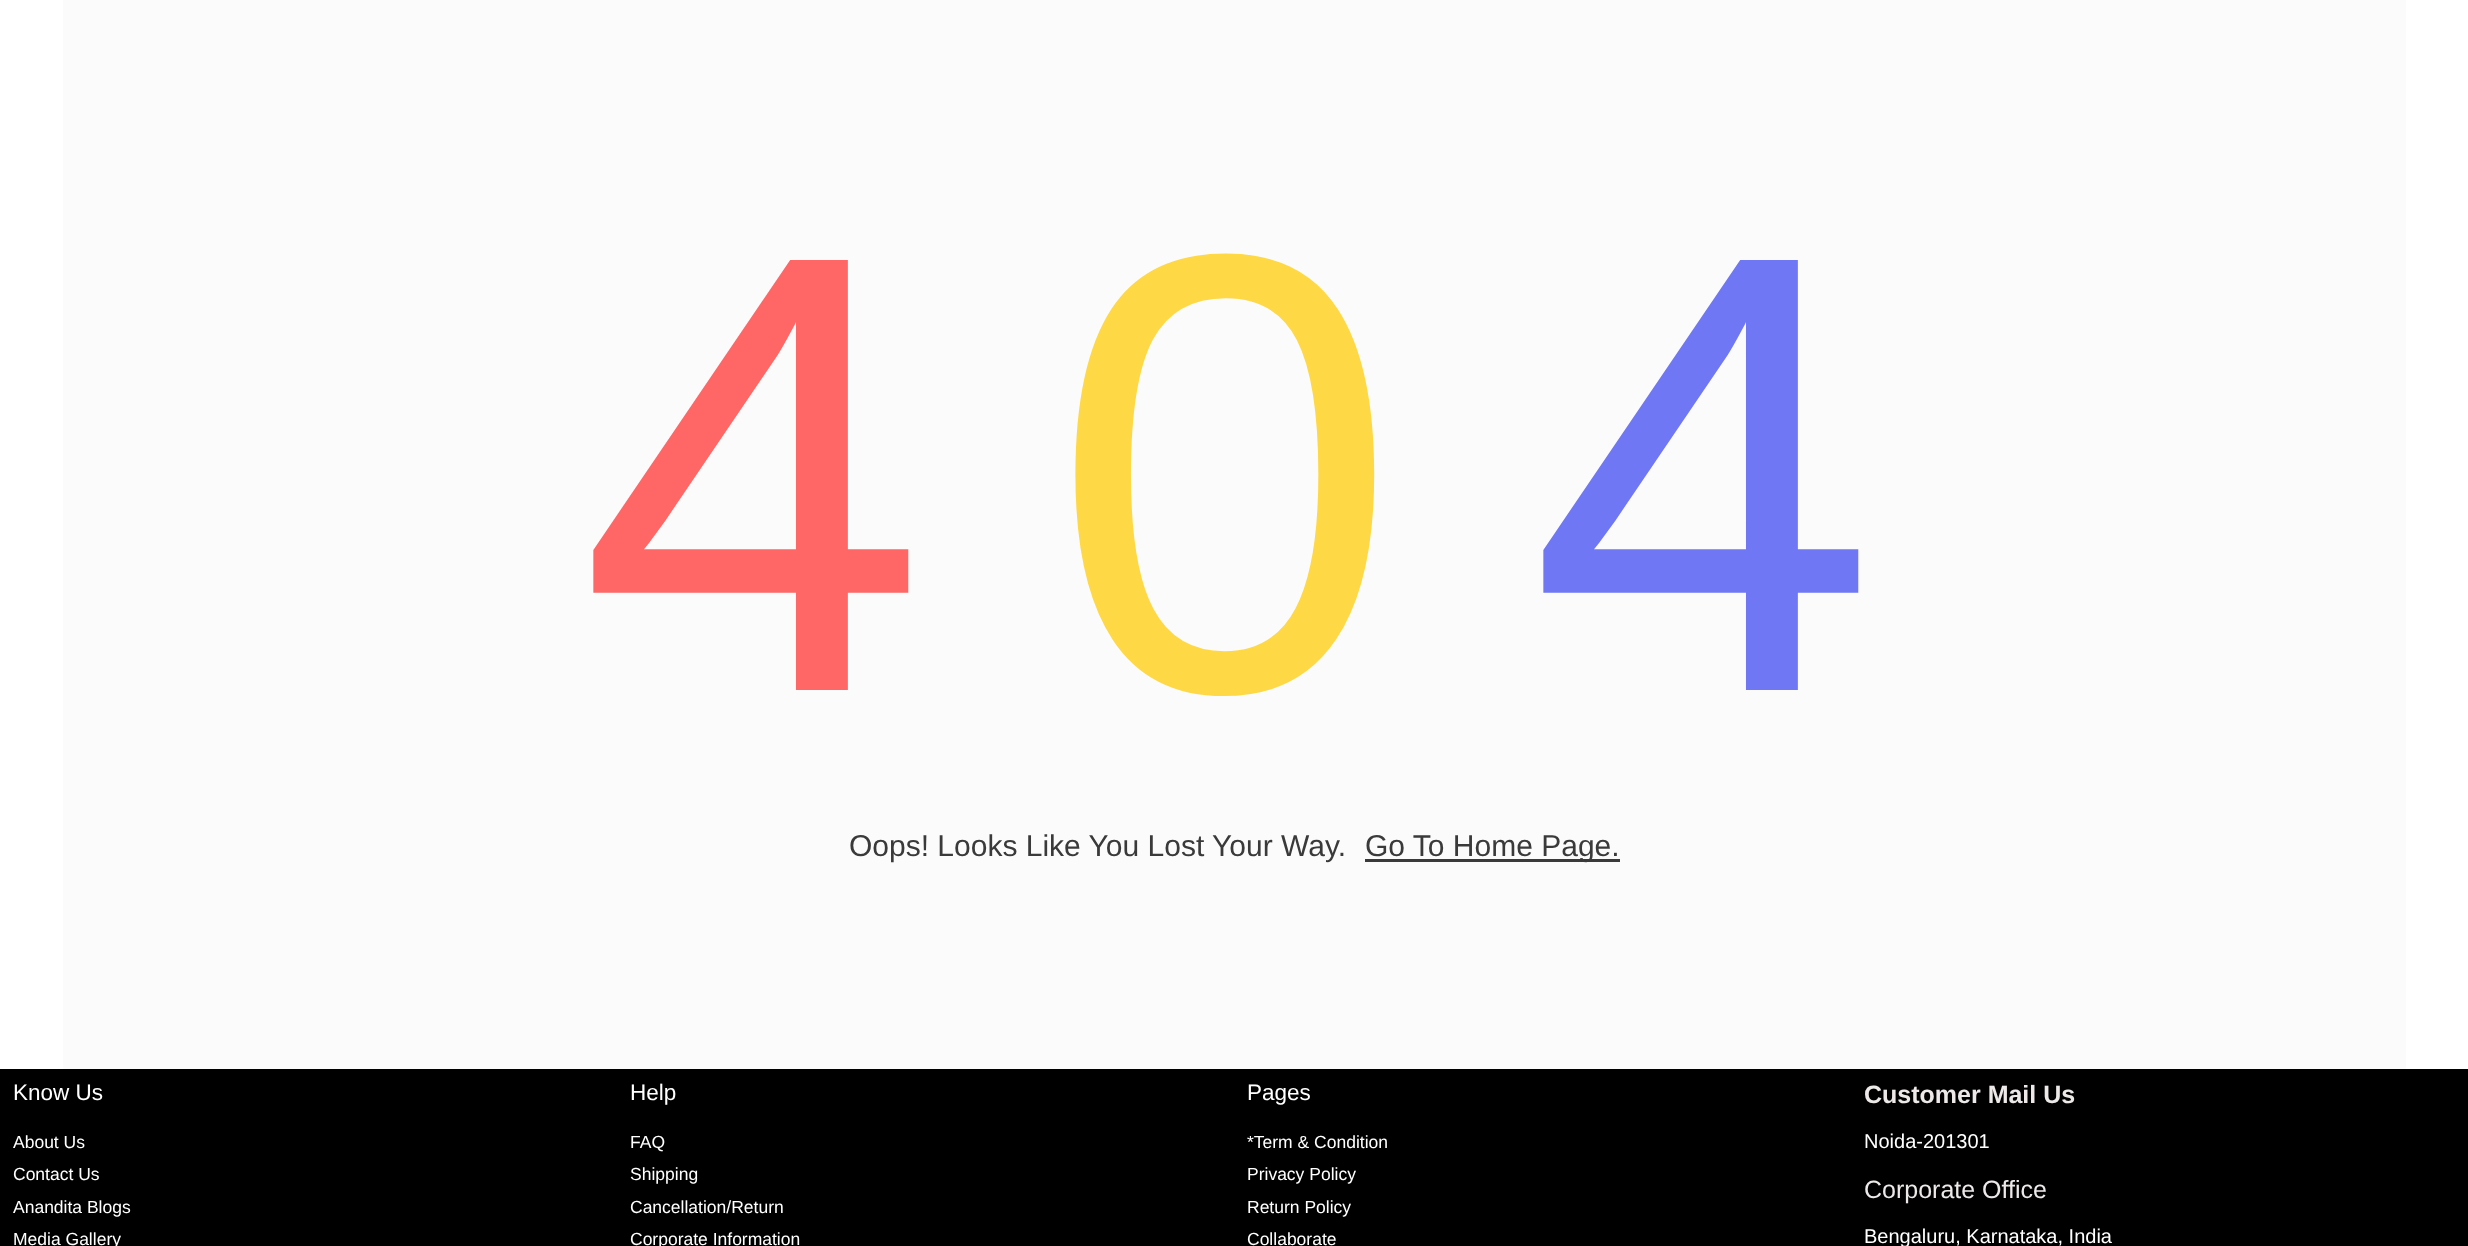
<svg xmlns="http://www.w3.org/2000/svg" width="2468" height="1246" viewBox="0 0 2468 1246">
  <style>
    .t1 { font: 625px Liberation Sans; fill: #f66; }
    .t2 { font: 625px Liberation Sans; fill: #ffd845; }
    .t3 { font: 625px Liberation Sans; fill: #6f77f4; }
    .t4 { font: 30px Liberation Sans; fill: #3a3a3a; }
    .t5 { font: 22.5px Liberation Sans; fill: #fff; }
    .t6 { font: 17.5px Liberation Sans; fill: #fff; }
    .t7 { font: bold 25px Liberation Sans; fill: #ede9e9; }
    .t8 { font: 20px Liberation Sans; fill: #fff; }
    .t9 { font: 25px Liberation Sans; fill: #ede9e9; }
  </style>
  <rect width="100%" height="100%" fill="#fbfbfb"/>
  <rect x="2406" y="0" width="62" height="1069" fill="#fff"/>
  <rect x="0" y="0" width="63" height="1069" fill="#fff"/>
  <text x="579" y="690" class="t1">4</text>
  <text x="1051" y="690" class="t2">0</text>
  <text x="1529" y="690" class="t3">4</text>
  <text x="849" y="856" class="t4">Oops! Looks Like You Lost Your Way.</text>
  <rect x="1365" y="859" width="255" height="3" fill="#3a3a3a"/>
  <text x="1365" y="856" class="t4">Go To Home Page.</text>
  <rect x="0" y="1069" width="2468" height="177" fill="#000"/>
  <text x="13" y="1100" class="t5">Know Us</text>
  <text x="13" y="1148" class="t6">About Us</text>
  <text x="13" y="1180" class="t6">Contact Us</text>
  <text x="13" y="1213" class="t6">Anandita Blogs</text>
  <text x="13" y="1245" class="t6">Media Gallery</text>
  <text x="630" y="1100" class="t5">Help</text>
  <text x="630" y="1148" class="t6">FAQ</text>
  <text x="630" y="1180" class="t6">Shipping</text>
  <text x="630" y="1213" class="t6">Cancellation/Return</text>
  <text x="630" y="1245" class="t6">Corporate Information</text>
  <text x="1247" y="1100" class="t5">Pages</text>
  <text x="1247" y="1148" class="t6">*Term &amp; Condition</text>
  <text x="1247" y="1180" class="t6">Privacy Policy</text>
  <text x="1247" y="1213" class="t6">Return Policy</text>
  <text x="1247" y="1245" class="t6">Collaborate</text>
  <text x="1864" y="1103" class="t7">Customer Mail Us</text>
  <text x="1864" y="1148" class="t8">Noida-201301</text>
  <text x="1864" y="1198" class="t9">Corporate Office</text>
  <text x="1864" y="1243" class="t8">Bengaluru, Karnataka, India</text>
</svg>
